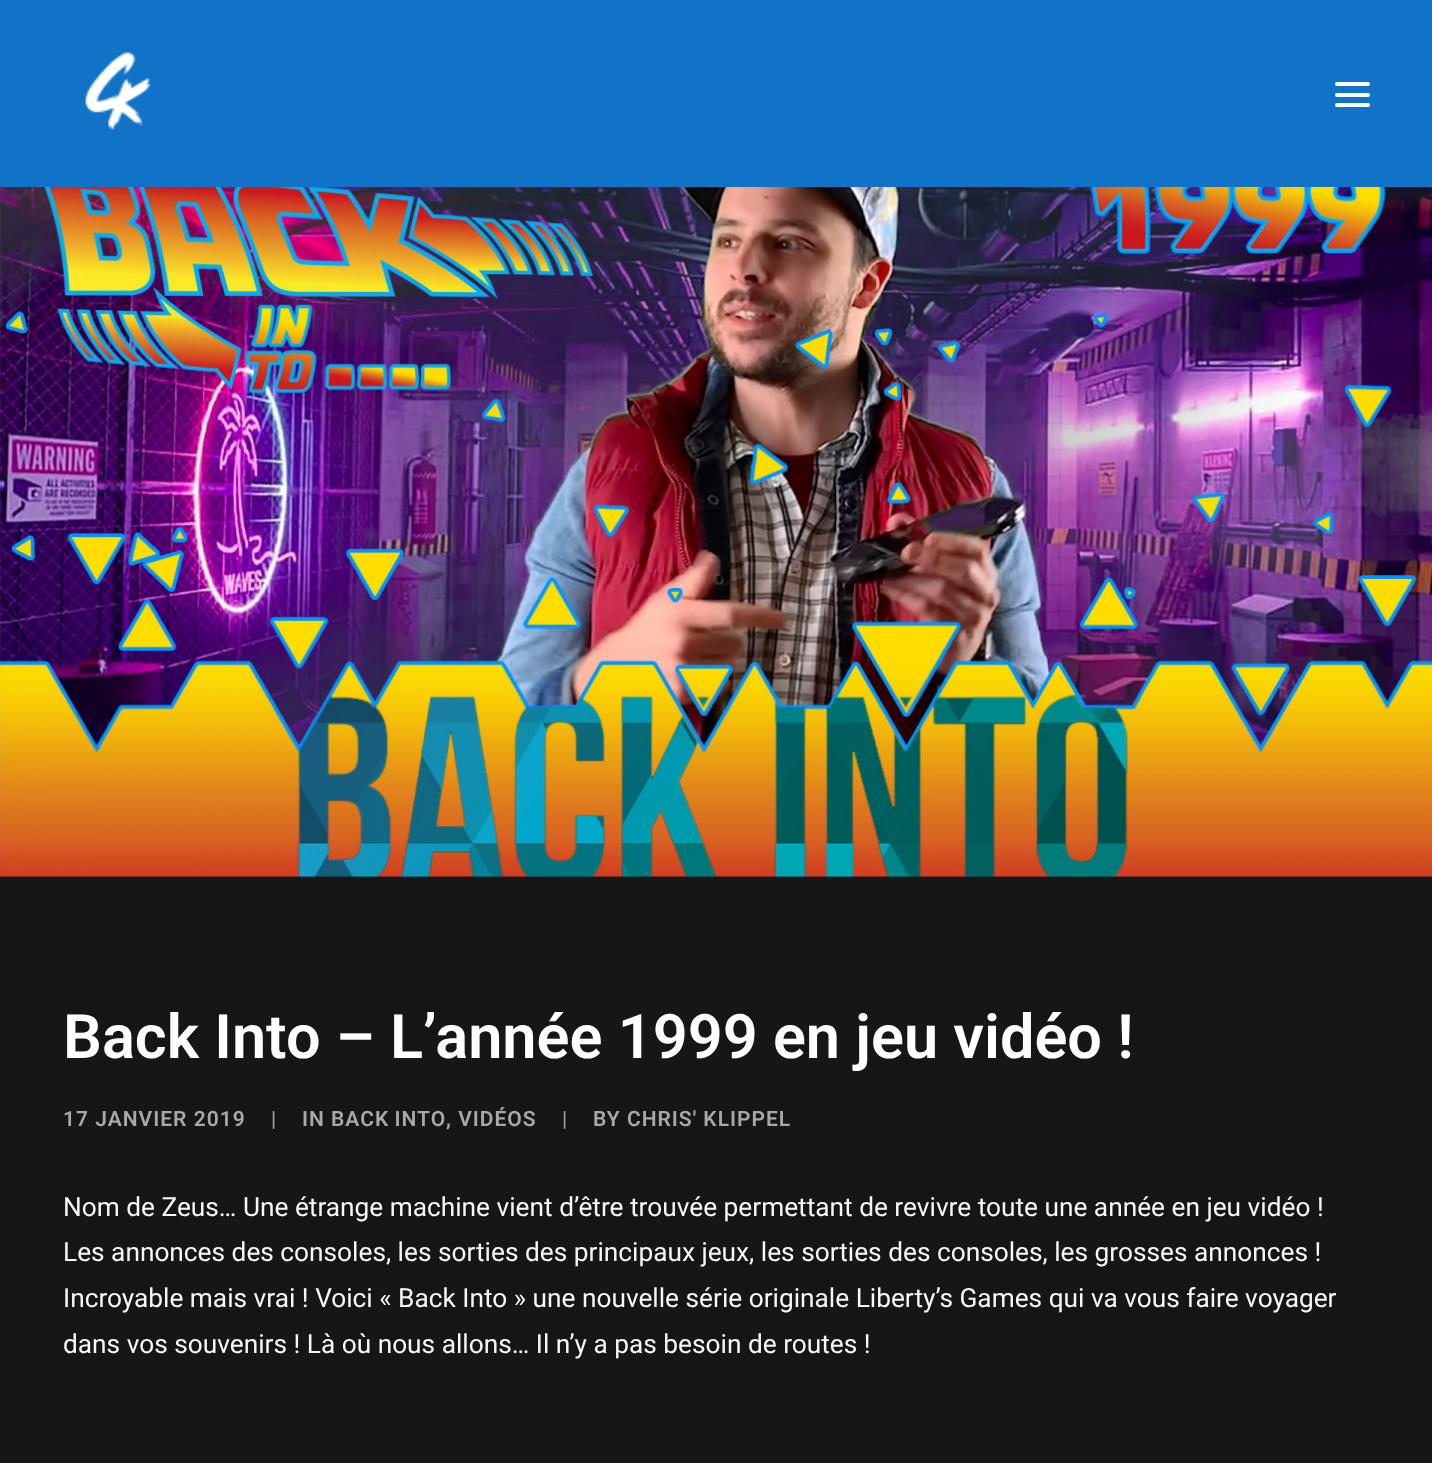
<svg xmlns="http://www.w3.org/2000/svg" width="1432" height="1463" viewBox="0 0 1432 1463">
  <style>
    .t1 { font: 600 61.25px Roboto; fill: #fff; }
    .t2 { font: 600 21px Roboto; letter-spacing: 1px; fill: #a8a8a9; }
    .t3 { font: 21px Roboto; letter-spacing: 1px; fill: #a8a8a9; }
    .t4 { font: 26.25px Roboto; fill: #f7f7f7; }
  </style>
  <rect width="100%" height="100%" fill="#141618"/>
  <rect x="0" y="0" width="1432" height="187" fill="#1073c8"/>
  <image x="85" y="52" width="66" height="78" href="images/1.png"/>
  <rect x="1335" y="93" width="35" height="4" rx="2" fill="#fff"/>
  <rect x="1335" y="82" width="35" height="4" rx="2" fill="#fff"/>
  <rect x="1335" y="103" width="35" height="4" rx="2" fill="#fff"/>
  <image x="0" y="187" width="1432" height="690" href="images/2.png"/>
  <text x="63" y="1058" class="t1">Back Into – L’année 1999 en jeu vidéo !</text>
  <text x="63" y="1126" class="t2">17 JANVIER 2019</text>
  <text x="271" y="1126" class="t3">|</text>
  <text x="302" y="1126" class="t2">IN</text>
  <text x="331" y="1126" word-spacing="-1" class="t2">BACK INTO</text>
  <text x="446" y="1126" class="t2">, VIDÉOS</text>
  <text x="562" y="1126" class="t3">|</text>
  <text x="593" y="1126" class="t2">BY CHRIS' KLIPPEL</text>
  <text x="63" y="1216" class="t4">Nom de Zeus… Une étrange machine vient d’être trouvée permettant de revivre toute une année en jeu vidéo !</text>
  <text x="63" y="1261" class="t4">Les annonces des consoles, les sorties des principaux jeux, les sorties des consoles, les grosses annonces !</text>
  <text x="63" y="1307" class="t4">Incroyable mais vrai ! Voici « Back Into » une nouvelle série originale Liberty’s Games qui va vous faire voyager</text>
  <text x="63" y="1353" class="t4">dans vos souvenirs ! Là où nous allons… Il n’y a pas besoin de routes !</text>
</svg>
